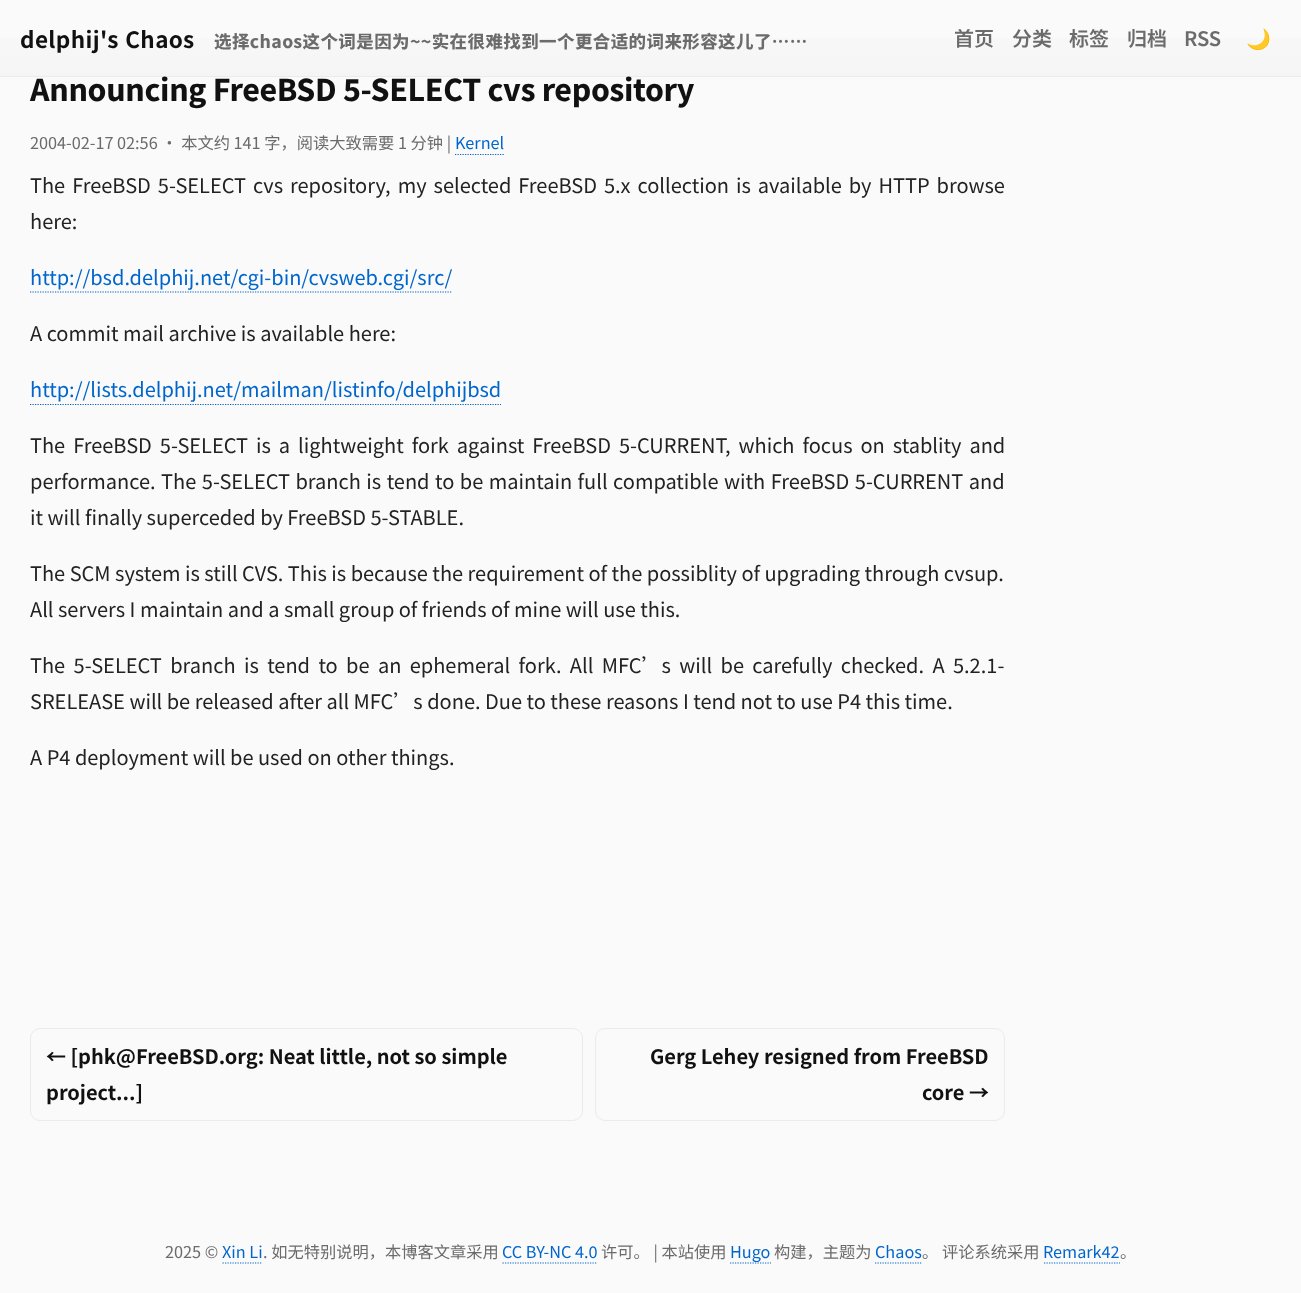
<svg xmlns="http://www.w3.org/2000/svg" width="1301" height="1293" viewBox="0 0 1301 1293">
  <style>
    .t1 { font: bold 22.5px Noto Sans SC; letter-spacing: 0.4px; fill: #111; }
    .t2 { font: 800 17.5px Noto Sans SC; letter-spacing: 0.4px; fill: #6b6b6b; }
    .t3 { font: 600 20px Noto Sans SC; fill: #6b6b6b; }
    .t4 { font: bold 20px Noto Color Emoji; fill: #000; }
    .t5 { font: 800 30px Noto Sans SC; letter-spacing: -0.3px; fill: #111; }
    .t6 { font: 16.25px Noto Sans SC; fill: #6b6b6b; }
    .t7 { font: 16.25px Noto Sans SC; fill: #06c; }
    .t8 { font: 20px Noto Sans SC; fill: #222; }
    .t9 { font: 20px Noto Sans SC; fill: #06c; }
    .t10 { font: bold 20px Noto Sans SC; fill: #111; }
  </style>
  <defs>
    <linearGradient id="g1" gradientUnits="userSpaceOnUse" x1="651" y1="0" x2="651" y2="76"><stop offset="0" stop-color="#fafafa"/><stop offset="1" stop-color="#f5f5f5"/></linearGradient>
  </defs>
  <rect width="100%" height="100%" fill="#fafafa"/>
  <rect x="0" y="38" width="1301" height="38" fill="url(#g1)"/>
  <rect x="0" y="76" width="1301" height="1" fill="#0000000f"/>
  <text x="20" y="48" word-spacing="1" class="t1">delphij's Chaos</text>
  <text x="214" y="48" class="t2">选择chaos这个词是因为~~实在很难找到一个更合适的词来形容这儿了……</text>
  <text x="954" y="46" class="t3">首页</text>
  <text x="1012" y="46" class="t3">分类</text>
  <text x="1069" y="46" class="t3">标签</text>
  <text x="1127" y="46" class="t3">归档</text>
  <text x="1184" y="46" class="t3">RSS</text>
  <text x="1246" y="46" class="t4">🌙</text>
  <text x="30" y="101" class="t5">Announcing FreeBSD 5-SELECT cvs repository</text>
  <text x="30" y="149" class="t6">2004-02-17 02:56 • 本文约 141 字，阅读大致需要 1 分钟 |</text>
  <text x="455" y="149" class="t7">Kernel</text>
  <path d="M455 154.5H504" fill="none" stroke="#06c" stroke-width="1.2" stroke-dasharray="1.25 1.25"/>
  <text x="30" y="193" word-spacing="2.5" class="t8">The FreeBSD 5-SELECT cvs repository, my selected FreeBSD 5.x collection is available by HTTP browse</text>
  <text x="30" y="229" class="t8">here:</text>
  <text x="30" y="285" class="t9">http://bsd.delphij.net/cgi-bin/cvsweb.cgi/src/</text>
  <path d="M30 292H452.5" fill="none" stroke="#06c" stroke-width="1.2" stroke-dasharray="1.25 1.25"/>
  <text x="30" y="341" class="t8">A commit mail archive is available here:</text>
  <text x="30" y="397" class="t9">http://lists.delphij.net/mailman/listinfo/delphijbsd</text>
  <path d="M30 404.5H501" fill="none" stroke="#06c" stroke-width="1.2" stroke-dasharray="1.25 1.25"/>
  <text x="30" y="453" word-spacing="3.5" class="t8">The FreeBSD 5-SELECT is a lightweight fork against FreeBSD 5-CURRENT, which focus on stablity and</text>
  <text x="30" y="489" word-spacing="1" class="t8">performance. The 5-SELECT branch is tend to be maintain full compatible with FreeBSD 5-CURRENT and</text>
  <text x="30" y="525" class="t8">it will finally superceded by FreeBSD 5-STABLE.</text>
  <text x="30" y="581" class="t8">The SCM system is still CVS. This is because the requirement of the possiblity of upgrading through cvsup.</text>
  <text x="30" y="617" class="t8">All servers I maintain and a small group of friends of mine will use this.</text>
  <text x="30" y="673" word-spacing="3.9" class="t8">The 5-SELECT branch is tend to be an ephemeral fork. All MFC’s will be carefully checked. A 5.2.1-</text>
  <text x="30" y="709" class="t8">SRELEASE will be released after all MFC’s done. Due to these reasons I tend not to use P4 this time.</text>
  <text x="30" y="765" class="t8">A P4 deployment will be used on other things.</text>
  <rect x="30.5" y="1028.5" width="552" height="92" rx="9.5" fill="none" stroke="#ebebeb"/>
  <text x="46" y="1064" class="t10">← [phk@FreeBSD.org: Neat little, not so simple</text>
  <text x="46" y="1100" class="t10">project...]</text>
  <rect x="595.5" y="1028.5" width="409" height="92" rx="9.5" fill="none" stroke="#ebebeb"/>
  <text x="650" y="1064" class="t10">Gerg Lehey resigned from FreeBSD</text>
  <text x="922" y="1100" class="t10">core →</text>
  <text x="165" y="1258" class="t6">2025 ©</text>
  <text x="222" y="1258" class="t7">Xin Li</text>
  <path d="M222.5 1263H262.5" fill="none" stroke="#06c" stroke-width="1.2" stroke-dasharray="1.25 1.25"/>
  <text x="263" y="1258" class="t6">. 如无特别说明，本博客文章采用</text>
  <text x="502" y="1258" class="t7">CC BY-NC 4.0</text>
  <path d="M502.5 1263H597.5" fill="none" stroke="#06c" stroke-width="1.2" stroke-dasharray="1.25 1.25"/>
  <text x="601" y="1258" class="t6">许可。 | 本站使用</text>
  <path d="M730 1263H771" fill="none" stroke="#06c" stroke-width="1.2" stroke-dasharray="1.25 1.25"/>
  <text x="730" y="1258" class="t7">Hugo</text>
  <text x="774" y="1258" class="t6">构建，主题为</text>
  <text x="875" y="1258" class="t7">Chaos</text>
  <path d="M875 1263H922.5" fill="none" stroke="#06c" stroke-width="1.2" stroke-dasharray="1.25 1.25"/>
  <text x="922" y="1258" class="t6">。 评论系统采用</text>
  <text x="1043" y="1258" class="t7">Remark42</text>
  <path d="M1044 1263H1120" fill="none" stroke="#06c" stroke-width="1.2" stroke-dasharray="1.25 1.25"/>
  <text x="1120" y="1258" class="t6">。</text>
</svg>
